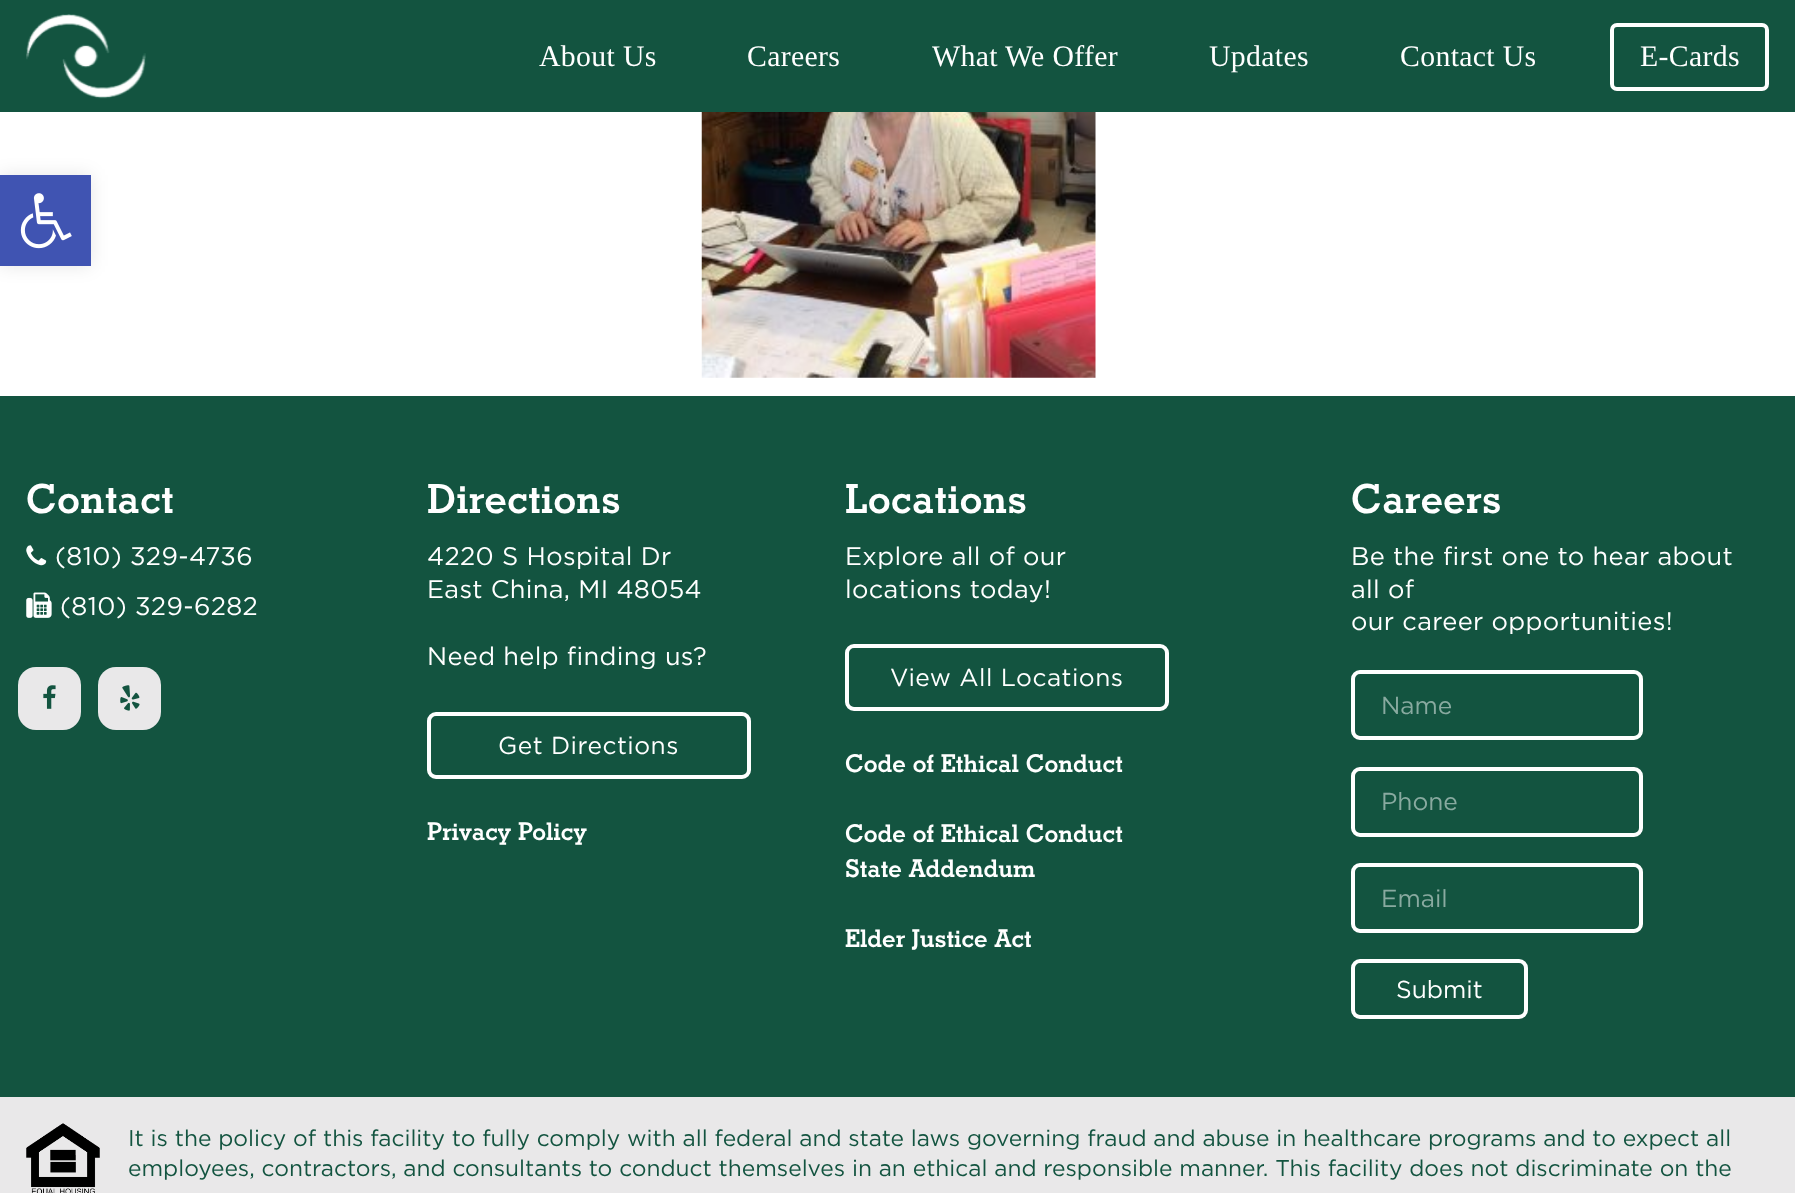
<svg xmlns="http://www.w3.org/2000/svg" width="1795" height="1193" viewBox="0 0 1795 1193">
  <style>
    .t1 { font: 29.75px Liberation Serif; letter-spacing: 0.35px; fill: #fff; }
    .t2 { font: bold 40.25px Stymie; letter-spacing: 0.35px; fill: #fff; }
    .t3 { font: 25.4px Gotham; letter-spacing: 0.35px; fill: #fff; }
    .t4 { font: 24.5px Gotham; letter-spacing: 0.5px; fill: #fff; }
    .t5 { font: bold 24.5px Stymie; fill: #fff; }
    .t6 { font: 24.5px Gotham; fill: #89aaa0; }
    .t7 { font: 24.5px Gotham; fill: #fff; }
    .t8 { font: 22.75px Gotham; fill: #135440; }
  </style>
  <rect width="100%" height="100%" fill="#fff"/>
  <rect x="0" y="0" width="1795" height="112" fill="#135440"/>
  <image x="26" y="14" width="120" height="85" href="images/1.png"/>
  <text x="539" y="66" class="t1">About Us</text>
  <text x="747" y="66" class="t1">Careers</text>
  <text x="932" y="66" class="t1">What We Offer</text>
  <text x="1209" y="66" class="t1">Updates</text>
  <text x="1400" y="66" class="t1">Contact Us</text>
  <rect x="1612" y="25" width="155" height="64" rx="5" fill="none" stroke="#fff" stroke-width="4"/>
  <text x="1640" y="66" class="t1">E-Cards</text>
  <rect x="0" y="175" width="91" height="91" fill="#0000001a" filter="blur(9px)"/>
  <rect x="0" y="175" width="91" height="91" fill="#4054b2"/>
  <image x="20" y="193" width="52" height="56" href="images/2.png"/>
  <image x="701" y="112" width="395" height="266" href="images/3.png"/>
  <rect x="0" y="396" width="1795" height="701" fill="#135440"/>
  <text x="26" y="513" class="t2">Contact</text>
  <image x="26" y="545" width="21" height="21" href="images/4.png"/>
  <text x="55" y="565" class="t3">(810) 329-4736</text>
  <image x="26" y="592" width="26" height="26" href="images/5.png"/>
  <text x="60" y="615" class="t3">(810) 329-6282</text>
  <rect x="18" y="667" width="63" height="63" rx="18" fill="#e9e8e9"/>
  <image x="43" y="685" width="13" height="24" href="images/6.png"/>
  <rect x="98" y="667" width="63" height="63" rx="18" fill="#e9e8e9"/>
  <image x="120" y="685" width="20" height="26" href="images/7.png"/>
  <text x="427" y="513" class="t2">Directions</text>
  <text x="427" y="565" class="t3">4220 S Hospital Dr</text>
  <text x="427" y="598" class="t3">East China, MI 48054</text>
  <text x="427" y="665" class="t3">Need help finding us?</text>
  <rect x="429" y="714" width="320" height="63" rx="7" fill="none" stroke="#fff" stroke-width="4"/>
  <text x="498" y="754" class="t4">Get Directions</text>
  <text x="427" y="840" class="t5">Privacy Policy</text>
  <text x="845" y="513" class="t2">Locations</text>
  <text x="845" y="565" class="t3">Explore all of our</text>
  <text x="845" y="598" class="t3">locations today!</text>
  <rect x="847" y="646" width="320" height="63" rx="7" fill="none" stroke="#fff" stroke-width="4"/>
  <text x="890" y="686" class="t4">View All Locations</text>
  <text x="845" y="772" class="t5">Code of Ethical Conduct</text>
  <text x="845" y="842" class="t5">Code of Ethical Conduct</text>
  <text x="845" y="877" class="t5">State Addendum</text>
  <text x="845" y="947" class="t5">Elder Justice Act</text>
  <text x="1351" y="513" class="t2">Careers</text>
  <text x="1351" y="565" class="t3">Be the first one to hear about</text>
  <text x="1351" y="598" class="t3">all of</text>
  <text x="1351" y="630" class="t3">our career opportunities!</text>
  <rect x="1353" y="672" width="288" height="66" rx="7" fill="none" stroke="#fff" stroke-width="4"/>
  <text x="1381" y="714" class="t6">Name</text>
  <rect x="1353" y="769" width="288" height="66" rx="7" fill="none" stroke="#fff" stroke-width="4"/>
  <text x="1381" y="810" class="t6">Phone</text>
  <rect x="1353" y="865" width="288" height="66" rx="7" fill="none" stroke="#fff" stroke-width="4"/>
  <text x="1381" y="907" class="t6">Email</text>
  <rect x="1353" y="961" width="173" height="56" rx="7" fill="none" stroke="#fff" stroke-width="4"/>
  <text x="1396" y="998" class="t7">Submit</text>
  <rect x="0" y="1097" width="1795" height="96" fill="#e9e8e9"/>
  <image x="26" y="1123" width="74" height="70" href="images/8.png"/>
  <text x="128" y="1146" class="t8">It is the policy of this facility to fully comply with all federal and state laws governing fraud and abuse in healthcare programs and to expect all</text>
  <text x="128" y="1176" class="t8">employees, contractors, and consultants to conduct themselves in an ethical and responsible manner. This facility does not discriminate on the</text>
</svg>
